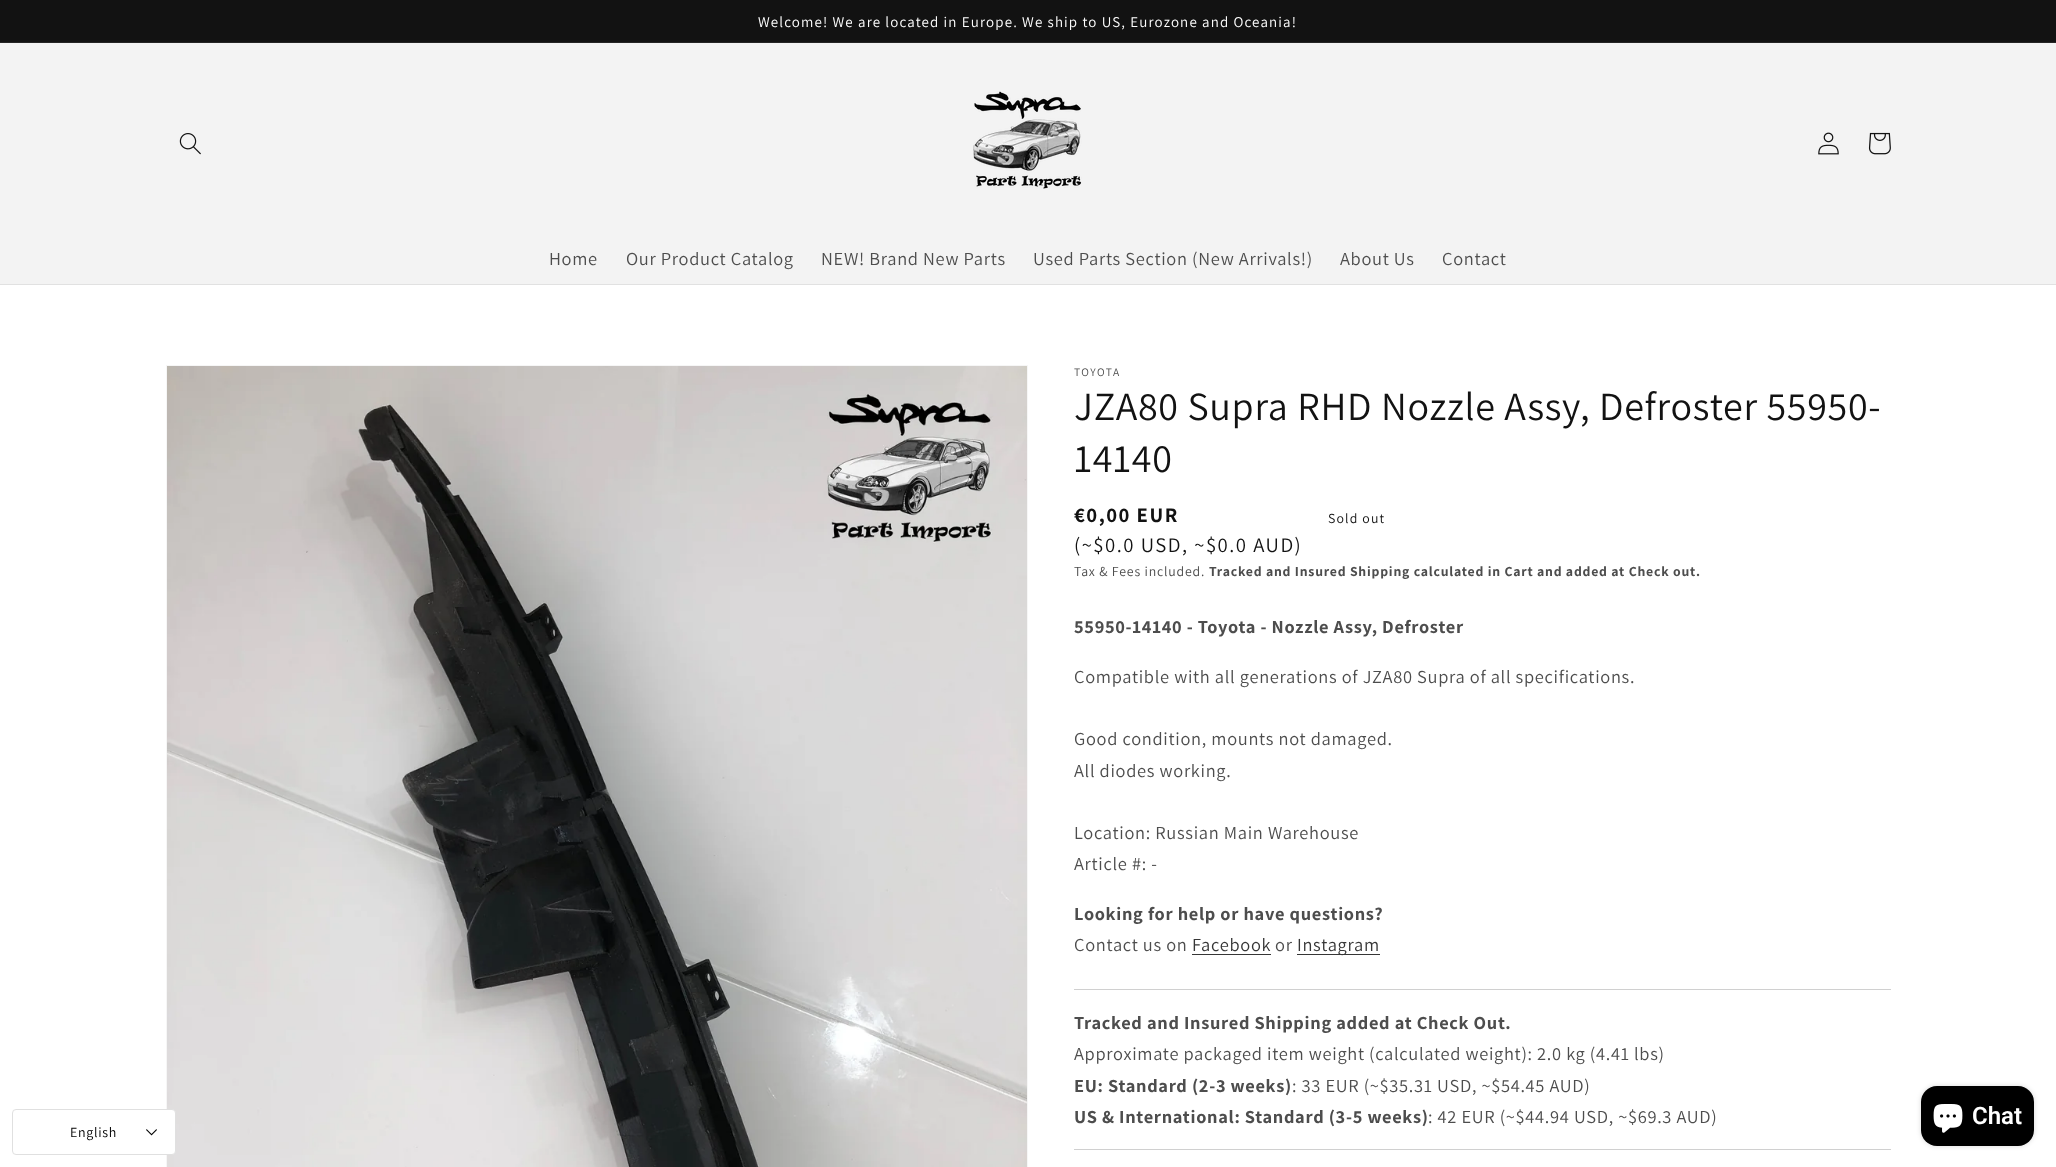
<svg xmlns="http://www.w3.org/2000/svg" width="2056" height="1167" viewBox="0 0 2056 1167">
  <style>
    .t1 { font: 14.95px Assistant; letter-spacing: 1.15px; fill: #fff; }
    .t2 { font: 18.4px Assistant; letter-spacing: 0.7px; fill: #4d4d4d; }
    .t3 { font: 11.5px Assistant; letter-spacing: 1.5px; fill: #4d4d4d; }
    .t4 { font: 40px Assistant; letter-spacing: 0.7px; fill: #121212; }
    .t5 { font: bold 20.75px Assistant; letter-spacing: 1.5px; fill: #121212; }
    .t6 { font: 20.75px Assistant; letter-spacing: 1.5px; fill: #121212; }
    .t7 { font: 13.8px Assistant; letter-spacing: 1.15px; fill: #121212; }
    .t8 { font: 13.8px Assistant; letter-spacing: 0.8px; fill: #4d4d4d; }
    .t9 { font: bold 13.8px Assistant; letter-spacing: 0.8px; fill: #4d4d4d; }
    .t10 { font: bold 18.4px Assistant; letter-spacing: 0.7px; fill: #4d4d4d; }
    .t11 { font: 18.4px Assistant; letter-spacing: 0.7px; fill: #363636; }
    .t12 { font: 600 24px Roboto; fill: #fff; }
    .t13 { font: 14px Assistant; letter-spacing: 0.7px; fill: #000; }
  </style>
  <rect width="100%" height="100%" fill="#fff"/>
  <rect x="0" y="0" width="2056" height="42" fill="#121212"/>
  <rect x="0" y="42" width="2056" height="1" fill="#252525"/>
  <text x="758" y="27" class="t1">Welcome! We are located in Europe. We ship to US, Eurozone and Oceania!</text>
  <rect x="0" y="43" width="2056" height="241" fill="#f3f3f3"/>
  <rect x="0" y="284" width="2056" height="1" fill="#e1e1e1"/>
  <image x="179" y="133" width="22" height="22" href="images/1.png"/>
  <image x="973" y="91" width="109" height="98" href="images/2.png"/>
  <image x="1818" y="132" width="21" height="23" href="images/3.png"/>
  <image x="1868" y="132" width="23" height="23" href="images/4.png"/>
  <text x="549" y="265" class="t2">Home</text>
  <text x="626" y="265" class="t2">Our Product Catalog</text>
  <text x="821" y="265" class="t2">NEW! Brand New Parts</text>
  <text x="1033" y="265" class="t2">Used Parts Section (New Arrivals!)</text>
  <text x="1340" y="265" class="t2">About Us</text>
  <text x="1442" y="265" class="t2">Contact</text>
  <rect x="166.5" y="365.5" width="861" height="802" fill="none" stroke="#f6f6f6"/>
  <image x="167" y="366" width="860" height="801" href="images/5.png"/>
  <text x="1074" y="376" class="t3">TOYOTA</text>
  <text x="1074" y="420" class="t4">JZA80 Supra RHD Nozzle Assy, Defroster 55950-</text>
  <text x="1074" y="472" class="t4">14140</text>
  <text x="1074" y="522" class="t5">€0,00 EUR</text>
  <text x="1074" y="552" class="t6">(~$0.0 USD, ~$0.0 AUD)</text>
  <text x="1328" y="523" class="t7">Sold out</text>
  <text x="1074" y="576" class="t8">Tax &amp; Fees included.</text>
  <text x="1209" y="576" class="t9">Tracked and Insured Shipping calculated in Cart and added at Check out.</text>
  <text x="1074" y="633" class="t10">55950-14140 - Toyota - Nozzle Assy, Defroster</text>
  <text x="1074" y="683" class="t2">Compatible with all generations of JZA80 Supra of all specifications.</text>
  <text x="1074" y="745" class="t2">Good condition, mounts not damaged.</text>
  <text x="1074" y="777" class="t2">All diodes working.</text>
  <text x="1074" y="839" class="t2">Location: Russian Main Warehouse</text>
  <text x="1074" y="870" class="t2">Article #: -</text>
  <text x="1074" y="920" class="t10">Looking for help or have questions?</text>
  <text x="1074" y="951" class="t2">Contact us on</text>
  <text x="1192" y="951" class="t11">Facebook</text>
  <rect x="1192" y="954" width="79" height="1" fill="#363636"/>
  <text x="1275" y="951" class="t2">or</text>
  <rect x="1297" y="954" width="83" height="1" fill="#363636"/>
  <text x="1297" y="951" class="t11">Instagram</text>
  <rect x="1074" y="989" width="817" height="1" fill="#d0d0d0"/>
  <text x="1074" y="1029" class="t10">Tracked and Insured Shipping added at Check Out.</text>
  <text x="1074" y="1060" class="t2">Approximate packaged item weight (calculated weight): 2.0 kg (4.41 lbs)</text>
  <text x="1074" y="1092" class="t10">EU: Standard (2-3 weeks)</text>
  <text x="1292" y="1092" class="t2">: 33 EUR (~$35.31 USD, ~$54.45 AUD)</text>
  <text x="1074" y="1123" class="t10">US &amp; International: Standard (3-5 weeks)</text>
  <text x="1428" y="1123" class="t2">: 42 EUR (~$44.94 USD, ~$69.3 AUD)</text>
  <rect x="1074" y="1149" width="817" height="1" fill="#d0d0d0"/>
  <rect x="1921" y="1086" width="113" height="60" rx="16" fill="#00000026" filter="blur(2.5px)"/>
  <rect x="1921" y="1086" width="113" height="60" rx="16" fill="#000"/>
  <image x="1933" y="1104" width="30" height="29" href="images/6.png"/>
  <text x="1972" y="1124" class="t12">Chat</text>
  <rect x="12.5" y="1109.5" width="163" height="45" rx="3.5" fill="#fff" stroke="#e0e0e0"/>
  <text x="70" y="1137" class="t13">English</text>
  <image x="146" y="1129" width="11" height="7" href="images/7.png"/>
</svg>
